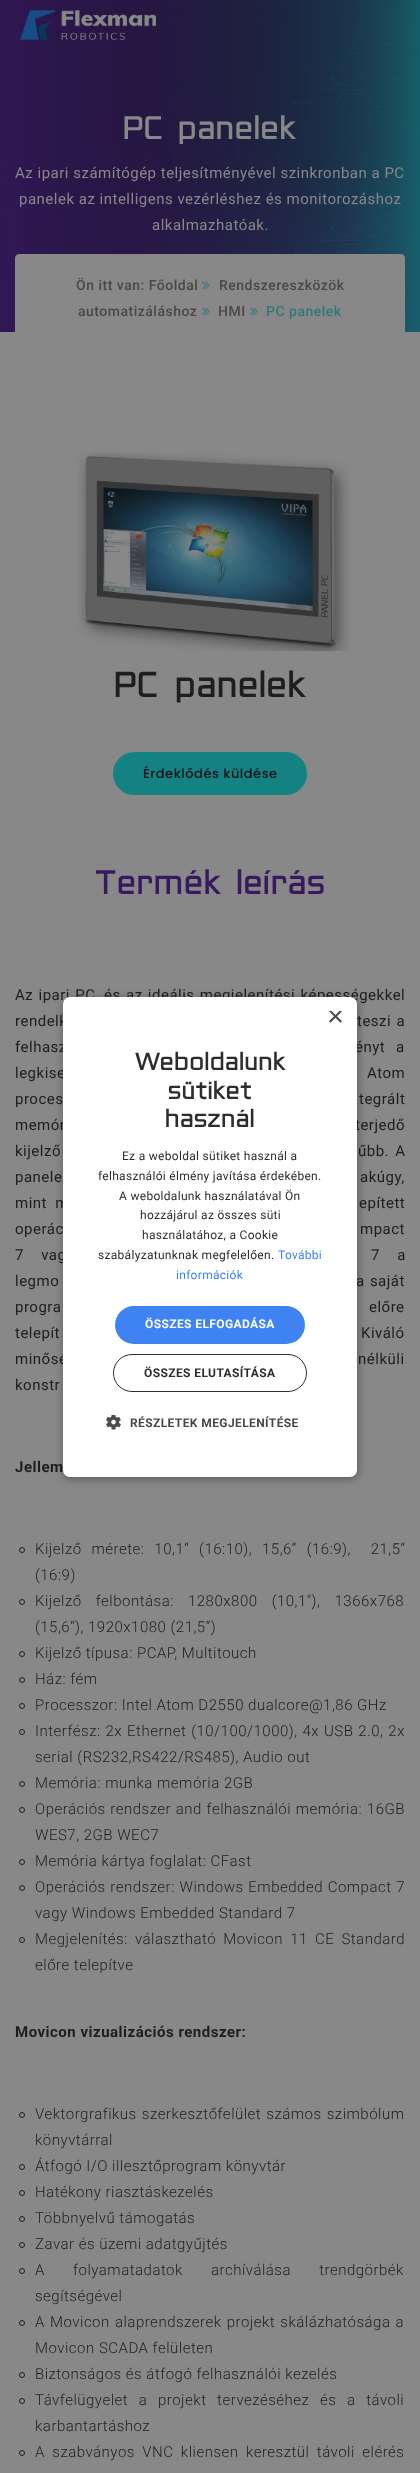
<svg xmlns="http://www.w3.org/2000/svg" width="420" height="2473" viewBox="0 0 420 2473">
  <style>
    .t1 { font: bold 28.75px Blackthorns; letter-spacing: 0.5px; fill: #888; }
    .t2 { font: 15px Roboto; letter-spacing: 0.5px; fill: #888; }
    .t3 { font: 500 14px Roboto; letter-spacing: 0.5px; fill: #484848; }
    .t4 { font: 500 14px Roboto; letter-spacing: 0.5px; fill: #31767d; }
    .t5 { font: bold 32px Blackthorns; letter-spacing: 0.5px; fill: #1e1e1e; }
    .t6 { font: 500 13px Poppins; letter-spacing: 0.5px; fill: #131019; }
    .t7 { font: bold 30px Blackthorns; letter-spacing: 0.5px; fill: #37195f; }
    .t8 { font: 15px Roboto; letter-spacing: 0.5px; fill: #1e1e1e; }
    .t9 { font: bold 15px Roboto; letter-spacing: 0.5px; fill: #1e1e1e; }
    .t10 { font: 300 15px Roboto; letter-spacing: 0.5px; fill: #1e1e1e; }
    .t11 { font: 29px Liberation Sans; fill: #484848; }
    .t12 { font: bold 22px Blackthorns; letter-spacing: 0.4px; fill: #2d2d2d; }
    .t13 { font: 12px Roboto; letter-spacing: 0.3px; fill: #2d2d2d; }
    .t14 { font: 12px Roboto; letter-spacing: 0.3px; fill: #3e83f1; }
    .t15 { font: bold 12px Roboto; letter-spacing: 0.4px; fill: #fff; }
    .t16 { font: bold 12px Roboto; letter-spacing: 0.4px; fill: #2d2d2d; }
    .t17 { font: bold 12px Roboto; letter-spacing: 0.4px; fill: #484848; }
  </style>
  <defs>
    <clipPath id="clip1"><rect x="327" y="1011" width="15" height="15"/></clipPath>
  </defs>
  <rect width="100%" height="100%" fill="#888"/>
  <image x="0" y="0" width="420" height="332" href="images/2.png"/>
  <image x="20" y="10" width="136" height="30" href="images/1.png"/>
  <text x="123" y="139" class="t1">PC panelek</text>
  <text x="15" y="178" class="t2">Az ipari számítógép teljesítményével szinkronban a PC</text>
  <text x="19" y="204" class="t2">panelek az intelligens vezérléshez és monitorozáshoz</text>
  <text x="152" y="230" class="t2">alkalmazhatóak.</text>
  <path d="M19 254H401C403 254 405 256 405 258V332H15V258C15 256 17 254 19 254Z" fill="#888"/>
  <text x="76" y="290" class="t3">Ön itt van: Főoldal</text>
  <image x="202" y="281" width="8" height="9" href="images/3.png"/>
  <text x="219" y="290" class="t3">Rendszereszközök</text>
  <text x="78" y="316" class="t3">automatizáláshoz</text>
  <image x="202" y="307" width="8" height="9" href="images/3.png"/>
  <text x="218" y="316" class="t3">HMI</text>
  <image x="250" y="307" width="8" height="9" href="images/3.png"/>
  <text x="266" y="316" class="t4">PC panelek</text>
  <image x="77" y="452" width="274" height="199" href="images/4.png"/>
  <text x="114" y="697" class="t5">PC panelek</text>
  <rect x="114" y="753" width="192" height="41" rx="20.5" fill="#148283" stroke="#148283" stroke-width="2"/>
  <text x="143" y="778" class="t6">Érdeklődés küldése</text>
  <text x="95" y="894" class="t7">Termék leírás</text>
  <text x="15" y="1000" word-spacing="1" class="t8">Az ipari PC, és az ideális megjelenítési képességekkel</text>
  <text x="15" y="1026" word-spacing="1" class="t8">rendelk</text>
  <text x="357" y="1026" word-spacing="1" class="t8">teszi a</text>
  <text x="15" y="1052" word-spacing="6.5" class="t8">felhasz</text>
  <text x="355" y="1052" word-spacing="6.5" class="t8">ényt a</text>
  <text x="15" y="1078" word-spacing="3" class="t8">legkise</text>
  <text x="367" y="1078" word-spacing="3" class="t8">Atom</text>
  <text x="15" y="1104" word-spacing="20" class="t8">proces</text>
  <text x="359" y="1104" word-spacing="20" class="t8">tegrált</text>
  <text x="15" y="1130" word-spacing="16" class="t8">memór</text>
  <text x="355" y="1130" word-spacing="16" class="t8">terjedő</text>
  <text x="15" y="1156" word-spacing="2" class="t8">kijelző</text>
  <text x="358" y="1156" word-spacing="2" class="t8">űbb. A</text>
  <text x="15" y="1182" word-spacing="6" class="t8">panele</text>
  <text x="360" y="1182" word-spacing="6" class="t8">akúgy,</text>
  <text x="15" y="1208" word-spacing="4" class="t8">mint m</text>
  <text x="359" y="1208" word-spacing="4" class="t8">epített</text>
  <text x="15" y="1234" word-spacing="1" class="t8">operác</text>
  <text x="360" y="1234" word-spacing="1" class="t8">mpact</text>
  <text x="15" y="1260" word-spacing="13" class="t8">7 vag</text>
  <text x="371" y="1260" word-spacing="13" class="t8">7 a</text>
  <text x="15" y="1286" word-spacing="1" class="t8">legmo</text>
  <text x="356" y="1286" word-spacing="1" class="t8">a saját</text>
  <text x="15" y="1312" word-spacing="12" class="t8">progra</text>
  <text x="369" y="1312" word-spacing="12" class="t8">előre</text>
  <text x="15" y="1338" word-spacing="6" class="t8">telepít</text>
  <text x="361" y="1338" word-spacing="6" class="t8">Kiváló</text>
  <text x="15" y="1364" word-spacing="17" class="t8">minősé</text>
  <text x="358" y="1364" word-spacing="17" class="t8">nélküli</text>
  <text x="15" y="1390" class="t8">konstr</text>
  <text x="15" y="1472" class="t9">Jellem</text>
  <circle cx="22" cy="1550" r="2.5" fill="none" stroke="#1e1e1e"/>
  <text x="35" y="1554" word-spacing="5.75" class="t10" xml:space="preserve">Kijelző mérete: 10,1“ (16:10), 15,6“ (16:9),  21,5“</text>
  <text x="35" y="1580" class="t10">(16:9)</text>
  <circle cx="22" cy="1602" r="2.5" fill="none" stroke="#1e1e1e"/>
  <text x="35" y="1606" word-spacing="10" class="t10">Kijelző felbontása: 1280x800 (10,1"), 1366x768</text>
  <text x="35" y="1632" class="t10">(15,6“), 1920x1080 (21,5“)</text>
  <circle cx="22" cy="1654" r="2.5" fill="none" stroke="#1e1e1e"/>
  <text x="35" y="1658" class="t10">Kijelző típusa: PCAP, Multitouch</text>
  <circle cx="22" cy="1680" r="2.5" fill="none" stroke="#1e1e1e"/>
  <text x="35" y="1684" class="t10">Ház: fém</text>
  <circle cx="22" cy="1706" r="2.5" fill="none" stroke="#1e1e1e"/>
  <text x="35" y="1710" class="t10">Processzor: Intel Atom D2550 dualcore@1,86 GHz</text>
  <circle cx="22" cy="1732" r="2.5" fill="none" stroke="#1e1e1e"/>
  <text x="35" y="1736" word-spacing="0.75" class="t10">Interfész: 2x Ethernet (10/100/1000), 4x USB 2.0, 2x</text>
  <text x="35" y="1762" class="t10">serial (RS232,RS422/RS485), Audio out</text>
  <circle cx="22" cy="1784" r="2.5" fill="none" stroke="#1e1e1e"/>
  <text x="35" y="1788" class="t10">Memória: munka memória 2GB</text>
  <circle cx="22" cy="1810" r="2.5" fill="none" stroke="#1e1e1e"/>
  <text x="35" y="1814" word-spacing="0.5" class="t10">Operációs rendszer and felhasználói memória: 16GB</text>
  <text x="35" y="1840" class="t10">WES7, 2GB WEC7</text>
  <circle cx="22" cy="1862" r="2.5" fill="none" stroke="#1e1e1e"/>
  <text x="35" y="1866" class="t10">Memória kártya foglalat: CFast</text>
  <circle cx="22" cy="1888" r="2.5" fill="none" stroke="#1e1e1e"/>
  <text x="35" y="1892" word-spacing="0.5" class="t10">Operációs rendszer: Windows Embedded Compact 7</text>
  <text x="35" y="1918" class="t10">vagy Windows Embedded Standard 7</text>
  <circle cx="22" cy="1940" r="2.5" fill="none" stroke="#1e1e1e"/>
  <text x="35" y="1944" word-spacing="3" class="t10">Megjelenítés: választható Movicon 11 CE Standard</text>
  <text x="35" y="1970" class="t10">előre telepítve</text>
  <text x="15" y="2037" class="t9">Movicon vizualizációs rendszer:</text>
  <circle cx="22" cy="2115" r="2.5" fill="none" stroke="#1e1e1e"/>
  <text x="35" y="2119" word-spacing="1" class="t10">Vektorgrafikus szerkesztőfelület számos szimbólum</text>
  <text x="35" y="2145" class="t10">könyvtárral</text>
  <circle cx="22" cy="2167" r="2.5" fill="none" stroke="#1e1e1e"/>
  <text x="35" y="2171" class="t10">Átfogó I/O illesztőprogram könyvtár</text>
  <circle cx="22" cy="2193" r="2.5" fill="none" stroke="#1e1e1e"/>
  <text x="35" y="2197" class="t10">Hatékony riasztáskezelés</text>
  <circle cx="22" cy="2219" r="2.5" fill="none" stroke="#1e1e1e"/>
  <text x="35" y="2223" class="t10">Többnyelvű támogatás</text>
  <circle cx="22" cy="2245" r="2.5" fill="none" stroke="#1e1e1e"/>
  <text x="35" y="2249" class="t10">Zavar és üzemi adatgyűjtés</text>
  <circle cx="22" cy="2271" r="2.5" fill="none" stroke="#1e1e1e"/>
  <text x="35" y="2275" word-spacing="24" class="t10">A folyamatadatok archíválása trendgörbék</text>
  <text x="35" y="2301" class="t10">segítségével</text>
  <circle cx="22" cy="2323" r="2.5" fill="none" stroke="#1e1e1e"/>
  <text x="35" y="2327" word-spacing="1" class="t10">A Movicon alaprendszerek projekt skálázhatósága a</text>
  <text x="35" y="2353" class="t10">Movicon SCADA felületen</text>
  <circle cx="22" cy="2375" r="2.5" fill="none" stroke="#1e1e1e"/>
  <text x="35" y="2379" class="t10">Biztonságos és átfogó felhasználói kezelés</text>
  <circle cx="22" cy="2401" r="2.5" fill="none" stroke="#1e1e1e"/>
  <text x="35" y="2405" word-spacing="6.5" class="t10">Távfelügyelet a projekt tervezéséhez és a távoli</text>
  <text x="35" y="2431" class="t10">karbantartáshoz</text>
  <circle cx="22" cy="2453" r="2.5" fill="none" stroke="#1e1e1e"/>
  <text x="35" y="2457" word-spacing="3.25" class="t10">A szabványos VNC kliensen keresztül távoli elérés</text>
  <rect x="64" y="999" width="294" height="480" rx="7" fill="#00000059" filter="blur(4px)"/>
  <rect x="63" y="997" width="294" height="480" rx="7" fill="#fff"/>
  <g clip-path="url(#clip1)">
    <text x="327" y="1026" class="t11">×</text>
  </g>
  <text x="135" y="1070" class="t12">Weboldalunk</text>
  <text x="168" y="1099" class="t12">sütiket</text>
  <text x="165" y="1127" class="t12">használ</text>
  <text x="122" y="1160" class="t13">Ez a weboldal sütiket használ a</text>
  <text x="98" y="1180" class="t13">felhasználói élmény javítása érdekében.</text>
  <text x="119" y="1200" class="t13">A weboldalunk használatával Ön</text>
  <text x="140" y="1219" class="t13">hozzájárul az összes süti</text>
  <text x="142" y="1239" class="t13">használatához, a Cookie</text>
  <text x="98" y="1259" class="t13">szabályzatunknak megfelelően.</text>
  <text x="278" y="1259" class="t14">További</text>
  <text x="176" y="1279" class="t14">információk</text>
  <rect x="115" y="1306" width="190" height="38" rx="19" fill="#3e83f1"/>
  <text x="145" y="1328" class="t15">ÖSSZES ELFOGADÁSA</text>
  <rect x="113.5" y="1354.5" width="193" height="37" rx="18.5" fill="none" stroke="#2d2d2d"/>
  <text x="144" y="1377" class="t16">ÖSSZES ELUTASÍTÁSA</text>
  <image x="106" y="1415" width="15" height="15" href="images/5.png"/>
  <text x="130" y="1427" class="t17">RÉSZLETEK MEGJELENÍTÉSE</text>
</svg>
